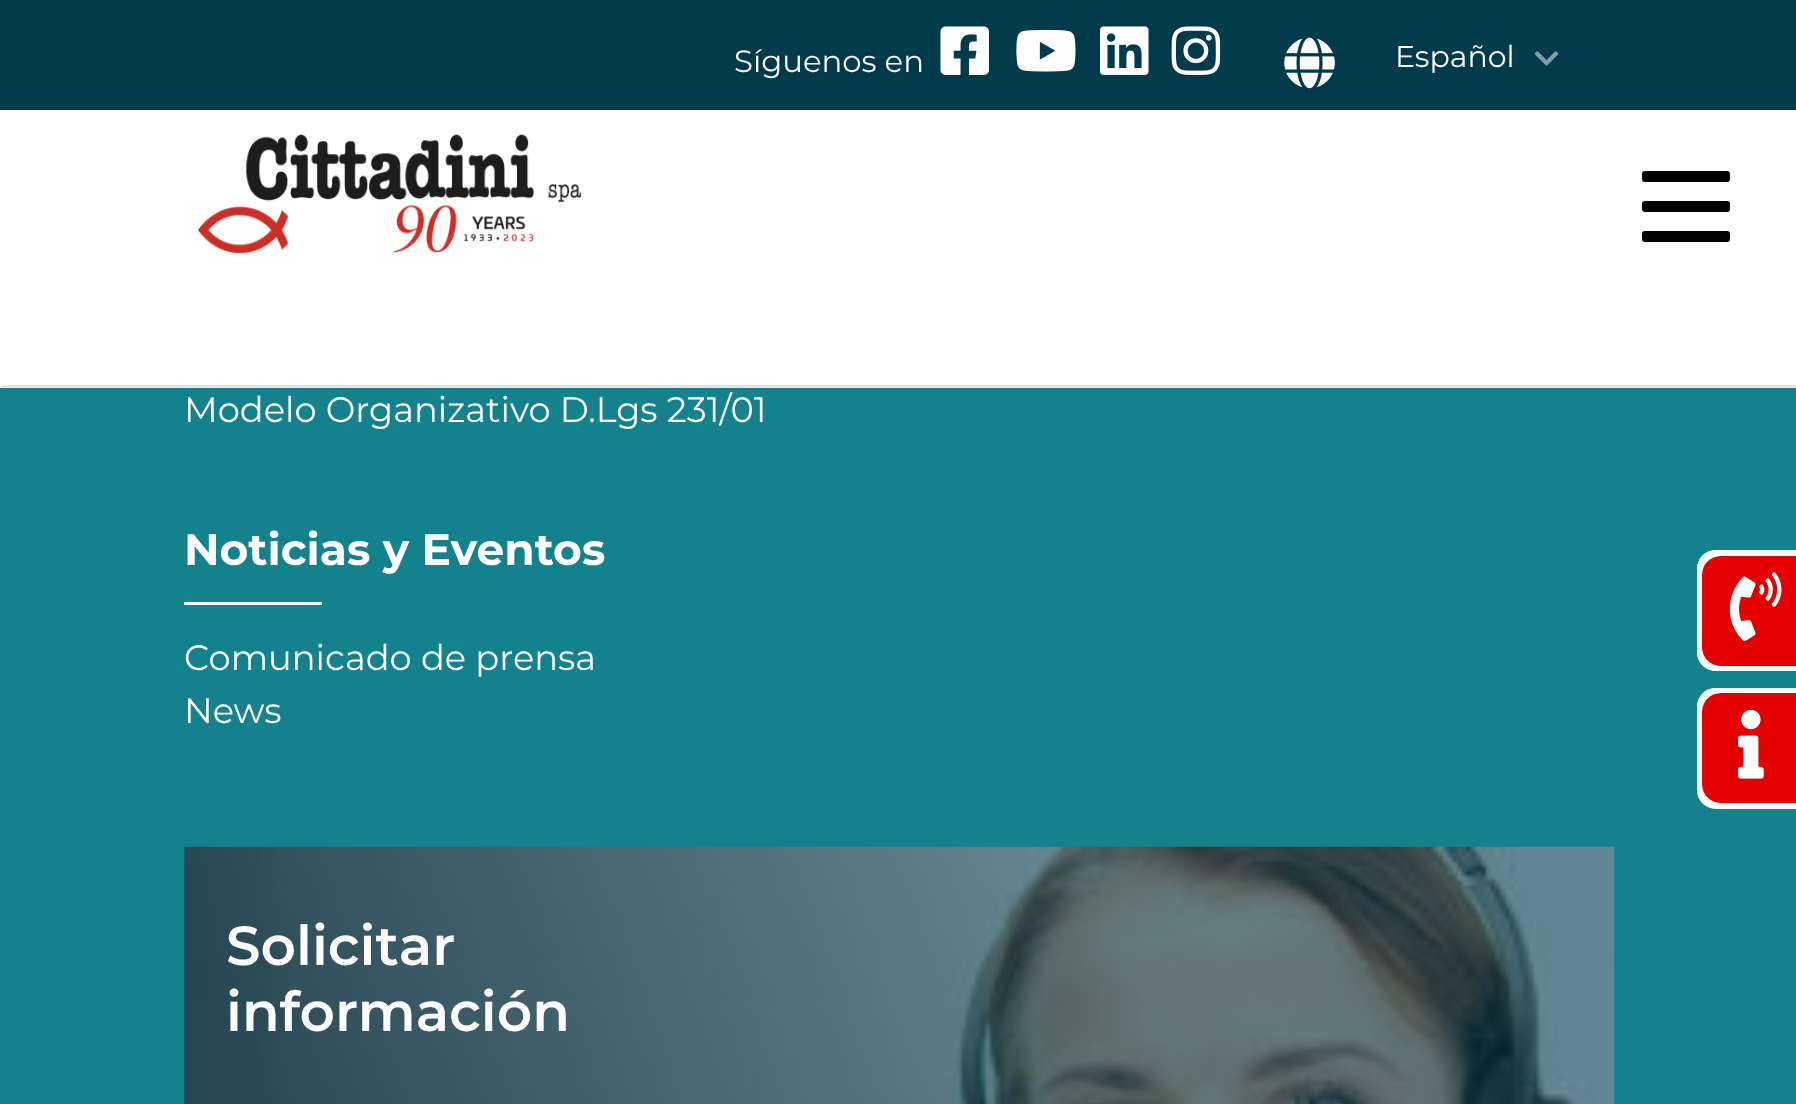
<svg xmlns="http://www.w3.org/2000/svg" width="1796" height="1104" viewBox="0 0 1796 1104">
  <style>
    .t1 { font: 100 30.75px Montserrat; fill: #fff; }
    .t2 { font: 100 30px Montserrat; fill: #fff; }
    .t3 { font: 100 35.25px Montserrat; fill: #fff; }
    .t4 { font: 100 44px 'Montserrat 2'; fill: #fff; }
    .t5 { font: 100 55px 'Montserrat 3'; fill: #fff; }
  </style>
  <rect width="100%" height="100%" fill="#14828c"/>
  <rect x="0" y="0" width="1796" height="110" fill="#003a4b"/>
  <text x="734" y="72" class="t1">Síguenos en</text>
  <image x="940" y="26" width="49" height="49" href="images/1.png"/>
  <image x="1016" y="29" width="60" height="43" href="images/2.png"/>
  <image x="1100" y="26" width="49" height="49" href="images/3.png"/>
  <image x="1171" y="26" width="50" height="49" href="images/4.png"/>
  <image x="1284" y="37" width="51" height="52" href="images/5.png"/>
  <text x="1395" y="67" class="t2">Español</text>
  <image x="1534" y="51" width="25" height="15" href="images/6.png"/>
  <rect x="0" y="110" width="1796" height="278" fill="#fff"/>
  <path d="M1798 388H0L3 385H1796Z" fill="#e6e6e6"/>
  <image x="198" y="134" width="384" height="119" href="images/7.png"/>
  <rect x="1642" y="171" width="88" height="11" rx="3" fill="#000"/>
  <rect x="1642" y="201" width="88" height="11" rx="3" fill="#000"/>
  <rect x="1642" y="231" width="88" height="11" rx="3" fill="#000"/>
  <text x="184" y="422" class="t3">Modelo Organizativo D.Lgs 231/01</text>
  <text x="184" y="565" class="t4">Noticias y Eventos</text>
  <rect x="184" y="602" width="138" height="3" fill="#fff"/>
  <text x="184" y="670" class="t3">Comunicado de prensa</text>
  <text x="184" y="723" class="t3">News</text>
  <image x="184" y="846" width="1431" height="258" href="images/8.png"/>
  <text x="226" y="965" class="t5">Solicitar</text>
  <text x="226" y="1031" class="t5">información</text>
  <path d="M1716 550H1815V671H1716C1705.5 671 1697 662.5 1697 652V569C1697 558.5 1705.5 550 1716 550Z" fill="#fff"/>
  <path d="M1716 550H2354V671H1716C1705 671 1697 662 1697 652V569C1697 559 1705 550 1716 550ZM1716 556H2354V666H1716C1708 666 1702 659 1702 652V569C1702 562 1708 556 1716 556Z" fill="#fff" fill-rule="evenodd"/>
  <path d="M1721 556H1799V666H1721C1710.5 666 1702 657.5 1702 647V575C1702 564.5 1710.5 556 1721 556Z" fill="#e40000"/>
  <image x="1729" y="572" width="53" height="70" href="images/9.png"/>
  <path d="M1716 688H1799V809H1716C1705.5 809 1697 800.5 1697 790V707C1697 696.5 1705.5 688 1716 688Z" fill="#fff"/>
  <path d="M1716 688H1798V808H1716C1705 808 1697 800 1697 789V707C1697 696 1705 688 1716 688ZM1716 693H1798V803H1716C1708 803 1702 797 1702 789V707C1702 699 1708 693 1716 693Z" fill="#fff" fill-rule="evenodd"/>
  <path d="M1721 693H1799V803H1721C1710.5 803 1702 794.5 1702 784V712C1702 701.5 1710.5 693 1721 693Z" fill="#e40000"/>
  <image x="1738" y="709" width="26" height="70" href="images/10.png"/>
</svg>
